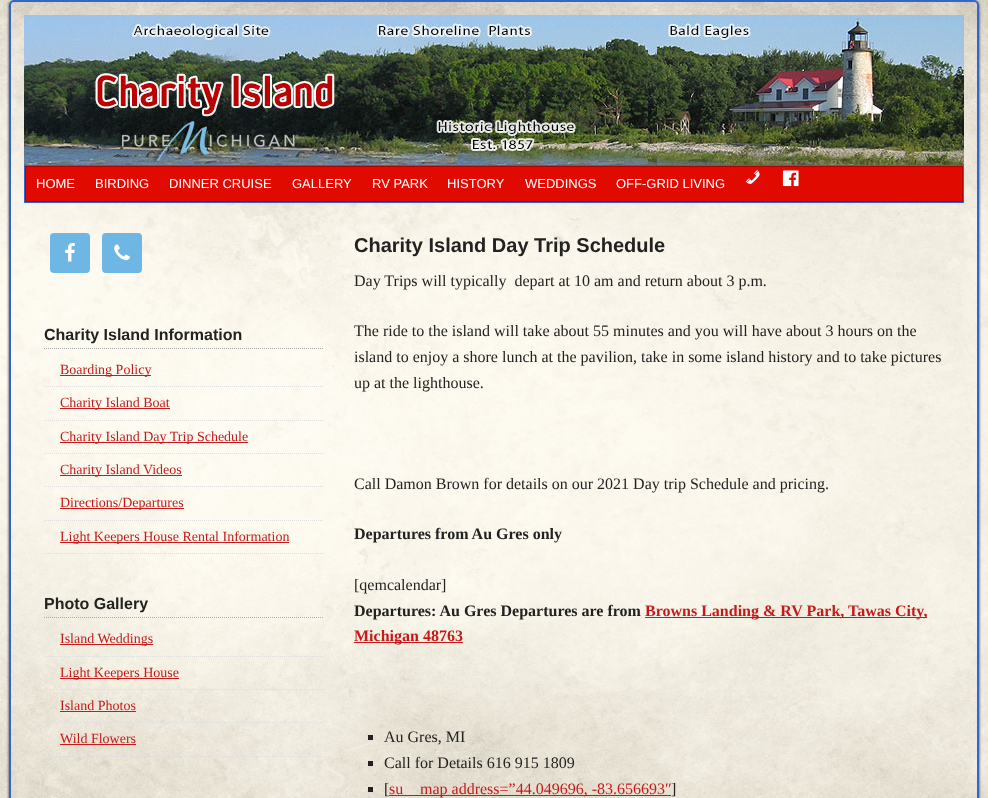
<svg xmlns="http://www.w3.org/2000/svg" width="988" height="798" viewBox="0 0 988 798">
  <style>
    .t1 { font: 13px Liberation Sans; fill: #fff; }
    .t2 { font: bold 16px Liberation Sans; fill: #222; }
    .t3 { font: 14px Liberation Serif; fill: #c61a1a; }
    .t4 { font: bold 20px Liberation Sans; fill: #222; }
    .t5 { font: 16px Liberation Serif; fill: #222; }
    .t6 { font: bold 16px Liberation Serif; fill: #222; }
    .t7 { font: bold 16px Liberation Serif; fill: #c61a1a; }
    .t8 { font: 16px Liberation Serif; fill: #c61a1a; }
  </style>
  <defs>
    <clipPath id="clip1"><path d="M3 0H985V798H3ZM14 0H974C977 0 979 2 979 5V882C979 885 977 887 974 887H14C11 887 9 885 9 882V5C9 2 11 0 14 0Z" clip-rule="evenodd"/></clipPath>
  </defs>
  <rect width="100%" height="100%" fill="#fff"/>
  <image x="0" y="0" width="988" height="798" href="images/1.png"/>
  <g clip-path="url(#clip1)">
    <rect x="9" y="1" width="970" height="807" rx="5" fill="#333" filter="blur(1.5px)"/>
  </g>
  <rect x="10" y="1" width="968" height="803" rx="4" fill="none" stroke="#36c" stroke-width="2"/>
  <image x="24" y="15" width="940" height="150" href="images/2.png"/>
  <rect x="26" y="167" width="936" height="34" fill="#e10a00"/>
  <rect x="24.5" y="165.5" width="939" height="37" fill="none" stroke="#36c"/>
  <rect x="25.5" y="166.5" width="937" height="35" fill="none" stroke="#b30000"/>
  <text x="36" y="188" class="t1">HOME</text>
  <text x="95" y="188" class="t1">BIRDING</text>
  <text x="169" y="188" class="t1">DINNER CRUISE</text>
  <text x="292" y="188" class="t1">GALLERY</text>
  <text x="372" y="188" class="t1">RV PARK</text>
  <text x="447" y="188" class="t1">HISTORY</text>
  <text x="525" y="188" class="t1">WEDDINGS</text>
  <text x="616" y="188" class="t1">OFF-GRID LIVING</text>
  <image x="745" y="170" width="15" height="14" href="images/3.png"/>
  <image x="782" y="170" width="17" height="17" href="images/4.png"/>
  <rect x="50" y="233" width="40" height="40" rx="4" fill="#6eb7e4"/>
  <image x="65" y="243" width="10" height="19" href="images/5.png"/>
  <rect x="102" y="233" width="40" height="40" rx="4" fill="#6eb7e4"/>
  <image x="114" y="244" width="16" height="17" href="images/6.png"/>
  <path d="M44 348.5H324" fill="none" stroke="#aaa" stroke-dasharray="1 1"/>
  <text x="44" y="340" class="t2">Charity Island Information</text>
  <path d="M44 386.5H324" fill="none" stroke="#ddd" stroke-dasharray="1 1"/>
  <rect x="60" y="375" width="91" height="1" fill="#c61a1a"/>
  <text x="60" y="374" class="t3">Boarding Policy</text>
  <path d="M44 420.5H324" fill="none" stroke="#ddd" stroke-dasharray="1 1"/>
  <rect x="60" y="408" width="110" height="1" fill="#c61a1a"/>
  <text x="60" y="407" class="t3">Charity Island Boat</text>
  <path d="M44 453.5H324" fill="none" stroke="#ddd" stroke-dasharray="1 1"/>
  <rect x="60" y="442" width="188" height="1" fill="#c61a1a"/>
  <text x="60" y="441" class="t3">Charity Island Day Trip Schedule</text>
  <path d="M44 486.5H324" fill="none" stroke="#ddd" stroke-dasharray="1 1"/>
  <rect x="60" y="475" width="122" height="1" fill="#c61a1a"/>
  <text x="60" y="474" class="t3">Charity Island Videos</text>
  <path d="M44 520.5H324" fill="none" stroke="#ddd" stroke-dasharray="1 1"/>
  <rect x="60" y="508" width="124" height="1" fill="#c61a1a"/>
  <text x="60" y="507" class="t3">Directions/Departures</text>
  <path d="M44 553.5H324" fill="none" stroke="#ddd" stroke-dasharray="1 1"/>
  <rect x="60" y="542" width="229" height="1" fill="#c61a1a"/>
  <text x="60" y="541" class="t3">Light Keepers House Rental Information</text>
  <path d="M44 617.5H324" fill="none" stroke="#aaa" stroke-dasharray="1 1"/>
  <text x="44" y="609" class="t2">Photo Gallery</text>
  <path d="M44 656.5H324" fill="none" stroke="#ddd" stroke-dasharray="1 1"/>
  <rect x="60" y="644" width="93" height="1" fill="#c61a1a"/>
  <text x="60" y="643" class="t3">Island Weddings</text>
  <path d="M44 689.5H324" fill="none" stroke="#ddd" stroke-dasharray="1 1"/>
  <rect x="60" y="678" width="119" height="1" fill="#c61a1a"/>
  <text x="60" y="677" class="t3">Light Keepers House</text>
  <path d="M44 722.5H324" fill="none" stroke="#ddd" stroke-dasharray="1 1"/>
  <text x="60" y="710" class="t3">Island Photos</text>
  <rect x="60" y="711" width="76" height="1" fill="#c61a1a"/>
  <path d="M44 756.5H324" fill="none" stroke="#ddd" stroke-dasharray="1 1"/>
  <text x="60" y="743" class="t3">Wild Flowers</text>
  <rect x="60" y="744" width="76" height="1" fill="#c61a1a"/>
  <text x="354" y="252" class="t4">Charity Island Day Trip Schedule</text>
  <text x="354" y="286" class="t5" xml:space="preserve">Day Trips will typically  depart at 10 am and return about 3 p.m.</text>
  <text x="354" y="336" class="t5">The ride to the island will take about 55 minutes and you will have about 3 hours on the</text>
  <text x="354" y="362" class="t5">island to enjoy a shore lunch at the pavilion, take in some island history and to take pictures</text>
  <text x="354" y="388" class="t5">up at the lighthouse.</text>
  <text x="354" y="489" class="t5">Call Damon Brown for details on our 2021 Day trip Schedule and pricing.</text>
  <text x="354" y="539" class="t6">Departures from Au Gres only</text>
  <text x="354" y="590" class="t5">[qemcalendar]</text>
  <text x="354" y="616" class="t6">Departures: Au Gres Departures are from</text>
  <rect x="645" y="617" width="282" height="1" fill="#c61a1a"/>
  <text x="645" y="616" class="t7">Browns Landing &amp; RV Park, Tawas City,</text>
  <rect x="354" y="642" width="109" height="1" fill="#c61a1a"/>
  <text x="354" y="641" class="t7">Michigan 48763</text>
  <rect x="368" y="735" width="5" height="5" fill="#222"/>
  <text x="384" y="742" class="t5">Au Gres, MI</text>
  <rect x="368" y="761" width="5" height="5" fill="#222"/>
  <text x="384" y="768" class="t5">Call for Details 616 915 1809</text>
  <rect x="368" y="787" width="5" height="5" fill="#222"/>
  <text x="384" y="794" class="t5">[</text>
  <text x="389" y="794" class="t8">su</text>
  <rect x="389" y="795" width="282" height="1" fill="#c61a1a"/>
  <text x="420" y="794" class="t8">map address=”44.049696, -83.656693″</text>
  <text x="671" y="794" class="t5">]</text>
</svg>
